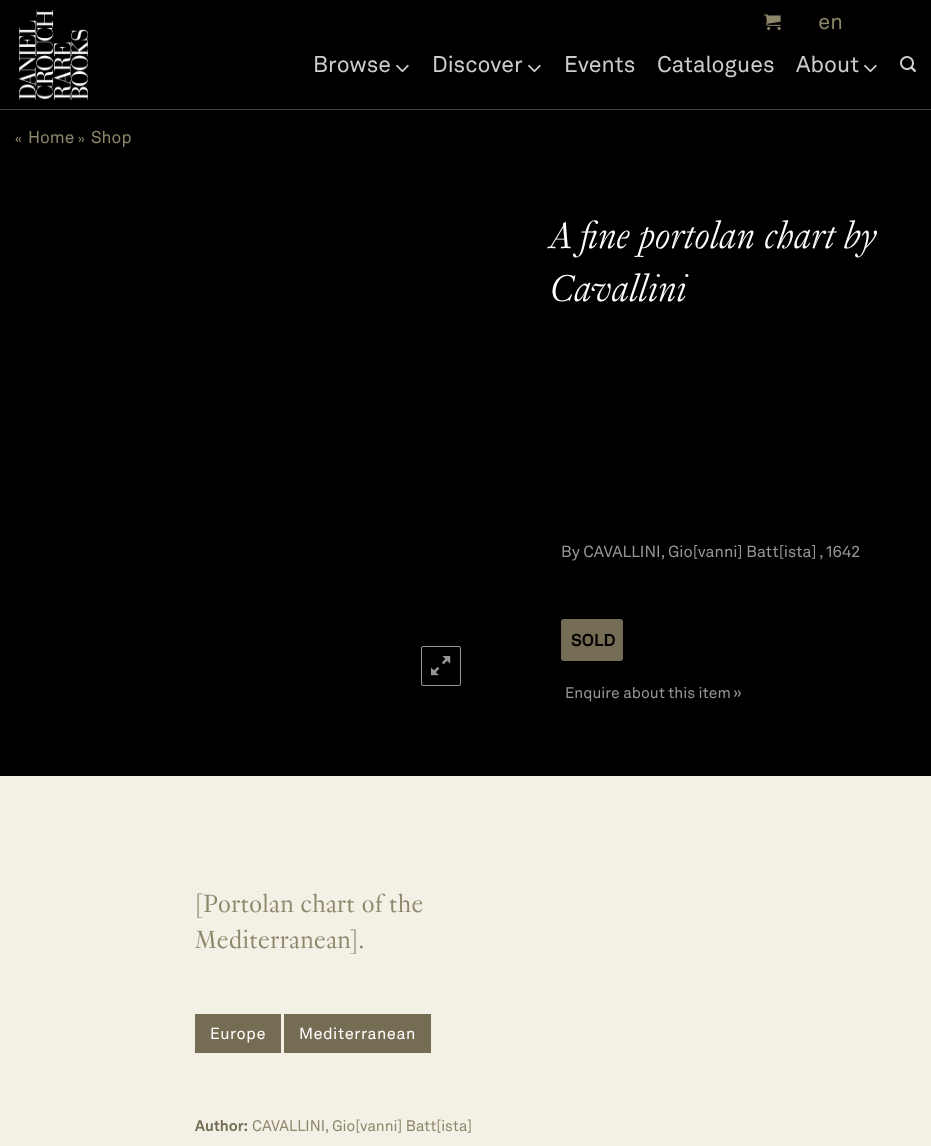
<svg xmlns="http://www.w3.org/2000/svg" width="931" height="1146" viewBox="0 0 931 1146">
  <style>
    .t1 { font: 22.5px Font; fill: #ccc; }
    .t2 { font: 12px Font; fill: #8e866a; }
    .t3 { font: 17px Font; fill: #8e866a; }
    .t4 { font: italic 300 40.75px Font; fill: #fff; }
    .t5 { font: 16px Font; fill: #969696; }
    .t6 { font: bold 17px Font; fill: #000; }
    .t7 { font: 15.25px Font; fill: #969696; }
    .t8 { font: 300 27.25px Font; fill: #8e866a; }
    .t9 { font: 16px Font; letter-spacing: 0.5px; fill: #fff; }
    .t10 { font: bold 15.1px Font; fill: #746c53; }
    .t11 { font: 15.1px Font; fill: #8e866a; }
  </style>
  <rect width="100%" height="100%" fill="#f3f0e6"/>
  <rect x="0" y="0" width="931" height="776" fill="#000"/>
  <image x="764" y="14" width="17" height="16" href="images/1.png"/>
  <image x="819" y="17" width="23" height="13" href="images/2.png"/>
  <rect x="0" y="109" width="931" height="1" fill="#444"/>
  <image x="19" y="10" width="69" height="90" href="images/3.png"/>
  <text x="313" y="72" class="t1">Browse</text>
  <image x="396" y="64" width="13" height="9" href="images/4.png"/>
  <text x="432" y="72" class="t1">Discover</text>
  <image x="528" y="64" width="13" height="9" href="images/4.png"/>
  <text x="564" y="72" class="t1">Events</text>
  <text x="657" y="72" class="t1">Catalogues</text>
  <text x="796" y="72" class="t1">About</text>
  <image x="864" y="64" width="13" height="9" href="images/4.png"/>
  <image x="900" y="56" width="16" height="16" href="images/5.png"/>
  <text x="15" y="143" class="t2">«</text>
  <text x="28" y="143" class="t3">Home</text>
  <text x="78" y="143" class="t2">»</text>
  <text x="91" y="143" class="t3">Shop</text>
  <rect x="421.5" y="646.5" width="39" height="39" rx="1.5" fill="none" stroke="#969696"/>
  <image x="431" y="656" width="20" height="20" href="images/6.png"/>
  <text x="550" y="248" word-spacing="0.5" class="t4">A fine portolan chart by</text>
  <text x="550" y="301" class="t4">Cavallini</text>
  <text x="561" y="557" class="t5">By CAVALLINI, Gio[vanni] Batt[ista]</text>
  <text x="819" y="557" class="t5">, 1642</text>
  <rect x="561" y="619" width="62" height="42" rx="3" fill="#746c53"/>
  <text x="571" y="646" class="t6">SOLD</text>
  <text x="565" y="698" class="t7">Enquire about this item »</text>
  <text x="195" y="912" class="t8">[Portolan chart of the</text>
  <text x="195" y="948" class="t8">Mediterranean].</text>
  <rect x="195" y="1014" width="86" height="39" fill="#746c53"/>
  <text x="210" y="1039" class="t9">Europe</text>
  <rect x="284" y="1014" width="147" height="39" fill="#746c53"/>
  <text x="299" y="1039" class="t9">Mediterranean</text>
  <text x="195" y="1131" class="t10">Author:</text>
  <text x="252" y="1131" class="t11">CAVALLINI, Gio[vanni] Batt[ista]</text>
</svg>
